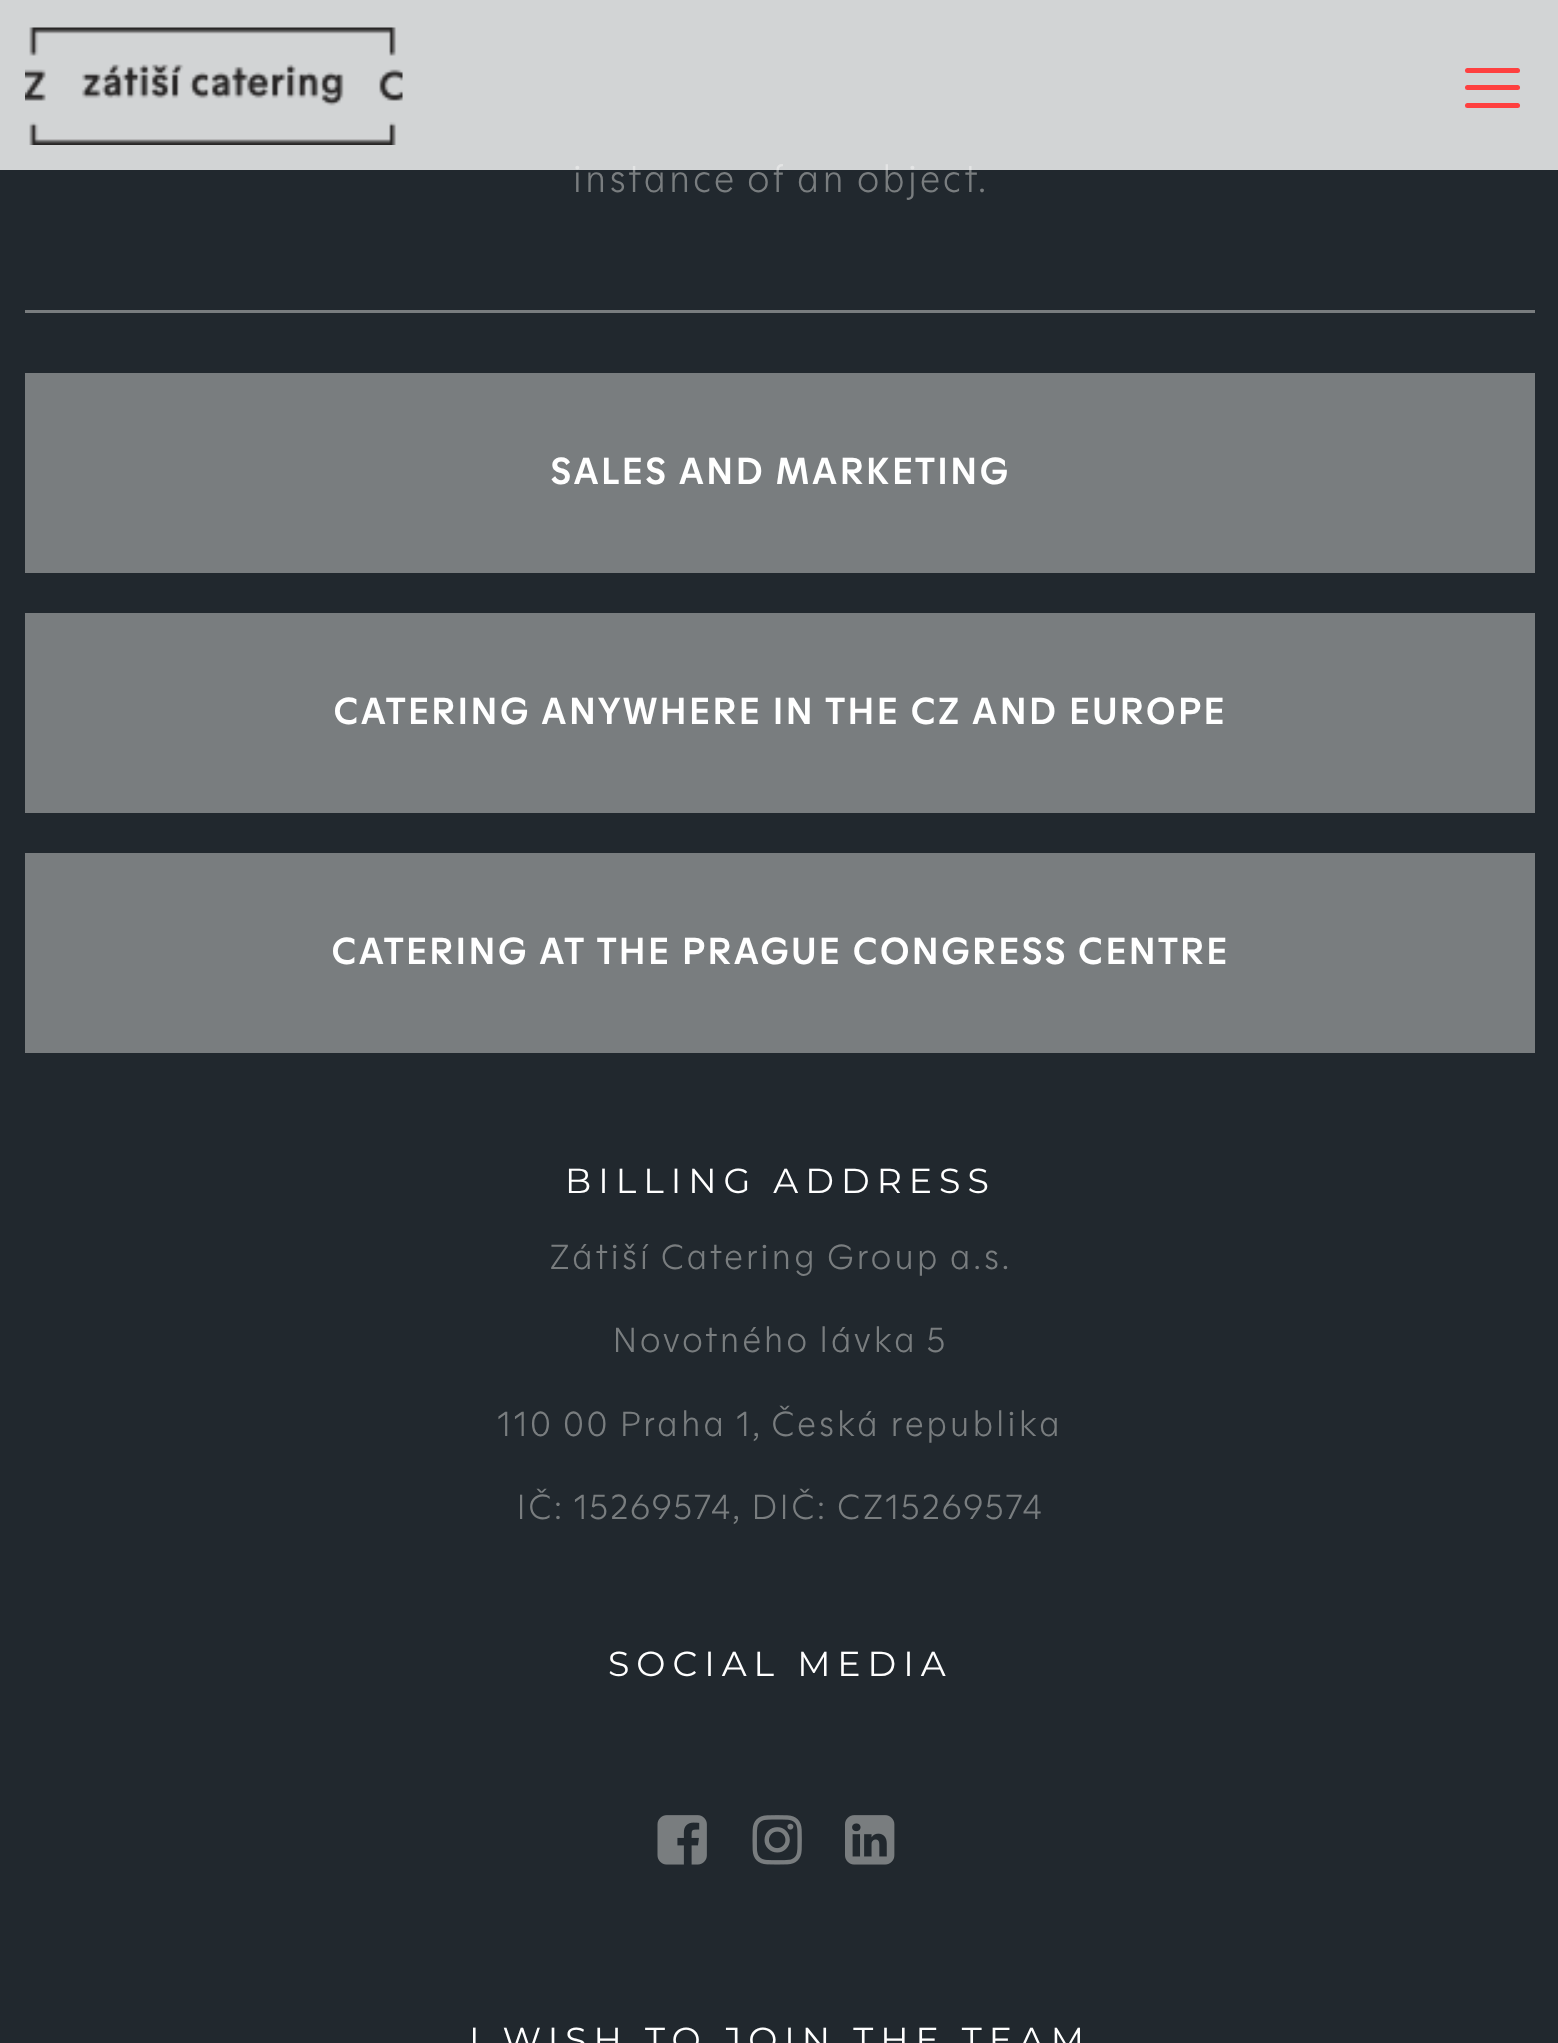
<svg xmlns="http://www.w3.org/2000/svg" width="1558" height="2043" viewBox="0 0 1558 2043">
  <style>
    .t1 { font: 300 37.5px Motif; letter-spacing: 1.5px; fill: #797d7f; }
    .t2 { font: 500 37.5px Motif; letter-spacing: 1.5px; fill: #fff; }
    .t3 { font: 34.75px Montserrat; letter-spacing: 7px; fill: #fff; }
    .t4 { font: 300 34.75px Motif; letter-spacing: 1.5px; fill: #797d7f; }
  </style>
  <rect width="100%" height="100%" fill="#21282e"/>
  <text x="572" y="192" class="t1">instance of an object.</text>
  <rect x="0" y="0" width="1558" height="170" fill="#ffffffcc"/>
  <image x="25" y="27" width="378" height="118" href="images/1.png"/>
  <rect x="1465" y="68" width="55" height="5" rx="2.5" fill="#fe4040"/>
  <rect x="1465" y="85" width="55" height="5" rx="2.5" fill="#fe4040"/>
  <rect x="1465" y="103" width="55" height="5" rx="2.5" fill="#fe4040"/>
  <rect x="25" y="310" width="1510" height="3" fill="#797d7f"/>
  <rect x="25" y="373" width="1510" height="200" fill="#797d7f"/>
  <text x="550" y="484" class="t2">SALES AND MARKETING</text>
  <rect x="25" y="613" width="1510" height="200" fill="#797d7f"/>
  <text x="333" y="724" class="t2">CATERING ANYWHERE IN THE CZ AND EUROPE</text>
  <rect x="25" y="853" width="1510" height="200" fill="#797d7f"/>
  <text x="331" y="964" class="t2">CATERING AT THE PRAGUE CONGRESS CENTRE</text>
  <text x="565" y="1193" class="t3">BILLING ADDRESS</text>
  <text x="549" y="1269" class="t4">Zátiší Catering Group a.s.</text>
  <text x="612" y="1352" class="t4">Novotného lávka 5</text>
  <text x="497" y="1436" class="t4">110 00 Praha 1, Česká republika</text>
  <text x="516" y="1519" class="t4">IČ: 15269574, DIČ: CZ15269574</text>
  <text x="608" y="1676" class="t3">SOCIAL MEDIA</text>
  <image x="657" y="1815" width="50" height="50" href="images/2.png"/>
  <image x="752" y="1815" width="50" height="50" href="images/3.png"/>
  <image x="845" y="1815" width="50" height="50" href="images/4.png"/>
  <text x="469" y="2052" class="t3">I WISH TO JOIN THE TEAM</text>
</svg>
